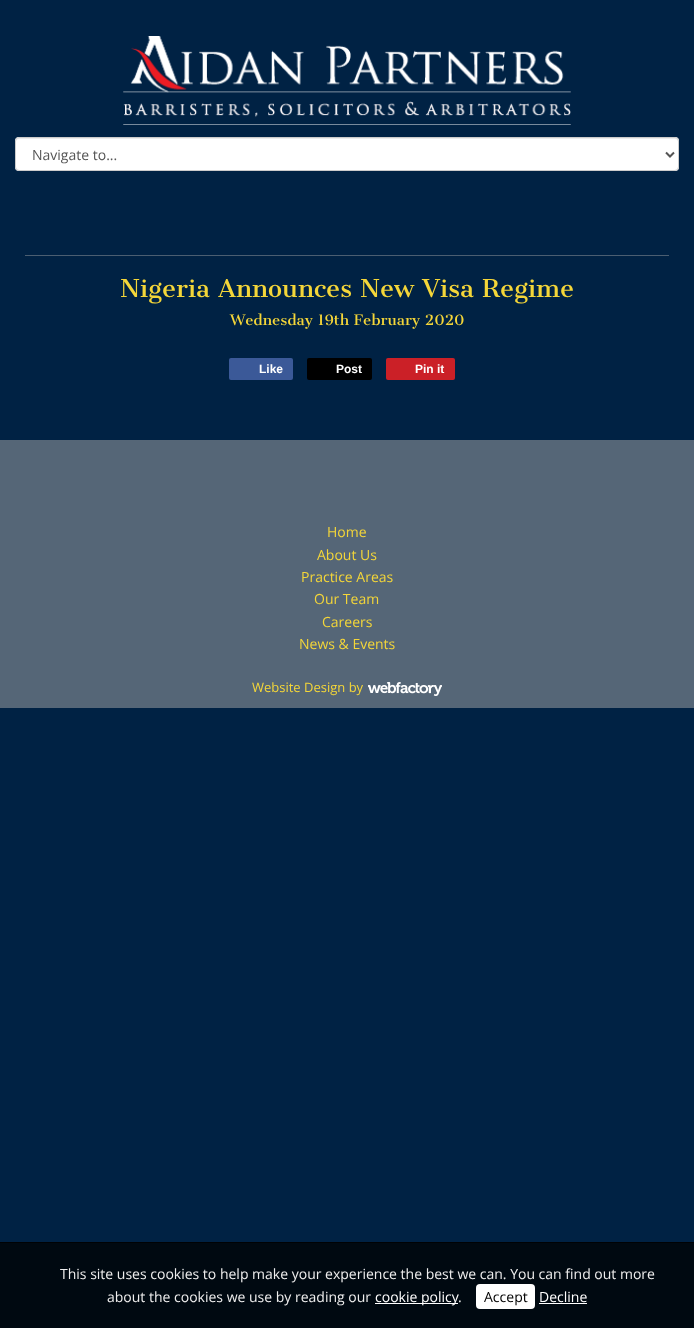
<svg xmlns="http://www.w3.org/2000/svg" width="694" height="1328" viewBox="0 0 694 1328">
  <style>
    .t1 { font: 14px Open Sans; fill: #555; }
    .t2 { font: 24px Cantata One; fill: #f4d639; }
    .t3 { font: 14px Cantata One; fill: #f4d639; }
    .t4 { font: bold 12px Liberation Sans; fill: #fff; }
    .t5 { font: 14px Open Sans; fill: #f4d639; }
    .t6 { font: 13px Open Sans; fill: #f4d639; }
    .t7 { font: 14px Open Sans; fill: #eee; }
    .t8 { font: 14px Open Sans; fill: #fff; }
    .t9 { font: 14px Open Sans; fill: #000; }
  </style>
  <rect width="100%" height="100%" fill="#024"/>
  <image x="123" y="36" width="448" height="89" href="images/1.png"/>
  <rect x="15" y="137" width="664" height="34" rx="4" fill="#fff"/>
  <path d="M19 139H675C677 139 678 140 678 142V141C678 139 677 138 675 138H19C17 138 16 139 16 141V142C16 140 17 139 19 139Z" fill="#ececec"/>
  <rect x="15.5" y="137.5" width="663" height="33" rx="3.5" fill="none" stroke="#ccc"/>
  <path d="M666 152.5L670 156.5L674 152.5" fill="none" stroke="#555" stroke-width="2"/>
  <text x="32" y="160" class="t1">Navigate to...</text>
  <rect x="25" y="255" width="644" height="1" fill="#4b5e71"/>
  <text x="120" y="297" class="t2">Nigeria Announces New Visa Regime</text>
  <text x="230" y="325" class="t3">Wednesday 19th February 2020</text>
  <rect x="229" y="358" width="64" height="22" rx="2" fill="#3b5998"/>
  <text x="259" y="373" class="t4">Like</text>
  <rect x="307" y="358" width="65" height="22" rx="2" fill="#000"/>
  <text x="336" y="373" class="t4">Post</text>
  <rect x="386" y="358" width="69" height="22" rx="2" fill="#cb2027"/>
  <text x="415" y="373" class="t4">Pin it</text>
  <rect x="0" y="440" width="694" height="268" fill="#567"/>
  <text x="327" y="537" class="t5">Home</text>
  <text x="317" y="560" class="t5">About Us</text>
  <text x="301" y="582" class="t5">Practice Areas</text>
  <text x="314" y="604" class="t5">Our Team</text>
  <text x="322" y="627" class="t5">Careers</text>
  <text x="299" y="649" class="t5">News &amp; Events</text>
  <text x="252" y="692" class="t6">Website Design by</text>
  <image x="368" y="682" width="74" height="14" href="images/2.png"/>
  <rect x="0" y="1243" width="694" height="85" fill="#000911"/>
  <rect x="0" y="1242" width="694" height="1" fill="#000204"/>
  <text x="60" y="1279" class="t7">This site uses cookies to help make your experience the best we can. You can find out more</text>
  <text x="107" y="1302" class="t7">about the cookies we use by reading our</text>
  <rect x="375" y="1303" width="83" height="1" fill="#fff"/>
  <text x="375" y="1302" class="t8">cookie policy</text>
  <text x="458" y="1302" class="t7">.</text>
  <rect x="476" y="1284" width="59" height="25" rx="4" fill="#fff"/>
  <text x="484" y="1302" class="t9">Accept</text>
  <text x="539" y="1302" class="t8">Decline</text>
  <rect x="539" y="1303" width="48" height="1" fill="#fff"/>
</svg>
